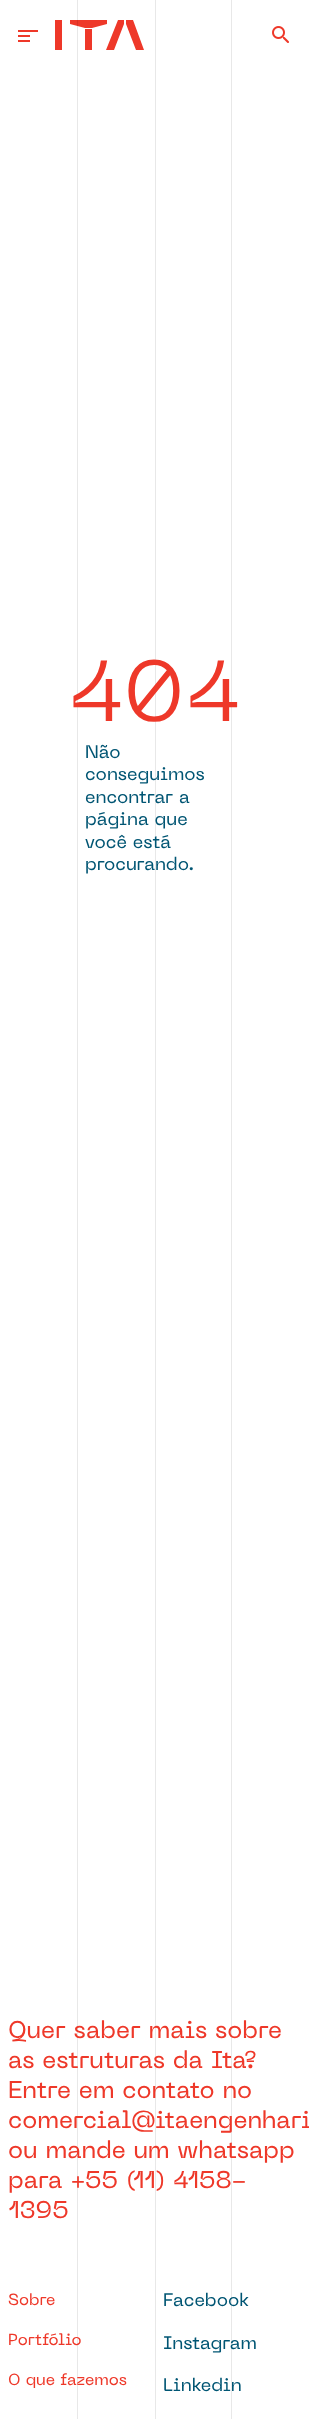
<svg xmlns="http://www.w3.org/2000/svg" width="309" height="2419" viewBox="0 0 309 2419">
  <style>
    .t1 { font: 300 86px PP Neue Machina; fill: #ee3829; }
    .t2 { font: 18px PP Neue Machina; fill: #005573; }
    .t3 { font: 24px PP Neue Machina; fill: #ee3829; }
    .t4 { font: 16px PP Neue Machina; fill: #ee3829; }
  </style>
  <rect width="100%" height="100%" fill="#fff"/>
  <rect x="155" y="0" width="1" height="2419" fill="#00000017"/>
  <path d="M62 20H55V50H62ZM92 29H85V50H92ZM70 20V24L85 28H92L107 24V20ZM118 20L106 50H114L124 24V20ZM133 20L144 50H136L126 24V20Z" fill="#ee3829"/>
  <rect x="77" y="0" width="1" height="2419" fill="#00000017"/>
  <rect x="231" y="0" width="1" height="2419" fill="#00000017"/>
  <rect x="18" y="35" width="12" height="2" fill="#ee3829"/>
  <rect x="18" y="30" width="20" height="2" fill="#ee3829"/>
  <rect x="18" y="40" width="12" height="2" fill="#ee3829"/>
  <image x="272" y="26" width="17" height="17" href="images/1.png"/>
  <text x="68" y="721" class="t1">404</text>
  <text x="85" y="758" class="t2">Não</text>
  <text x="85" y="780" class="t2">conseguimos</text>
  <text x="85" y="803" class="t2">encontrar a</text>
  <text x="85" y="825" class="t2">página que</text>
  <text x="85" y="848" class="t2">você está</text>
  <text x="85" y="870" class="t2">procurando.</text>
  <text x="8" y="2038" class="t3">Quer saber mais sobre</text>
  <text x="8" y="2068" class="t3">as estruturas da Ita?</text>
  <text x="8" y="2098" class="t3">Entre em contato no</text>
  <text x="8" y="2128" class="t3">comercial@itaengenhari</text>
  <text x="8" y="2158" class="t3">ou mande um whatsapp</text>
  <text x="8" y="2188" class="t3">para +55 (11) 4158-</text>
  <text x="8" y="2218" class="t3">1395</text>
  <text x="8" y="2305" class="t4">Sobre</text>
  <text x="8" y="2345" class="t4">Portfólio</text>
  <text x="8" y="2385" class="t4">O que fazemos</text>
  <text x="163" y="2306" class="t2">Facebook</text>
  <text x="163" y="2349" class="t2">Instagram</text>
  <text x="163" y="2391" class="t2">Linkedin</text>
</svg>
